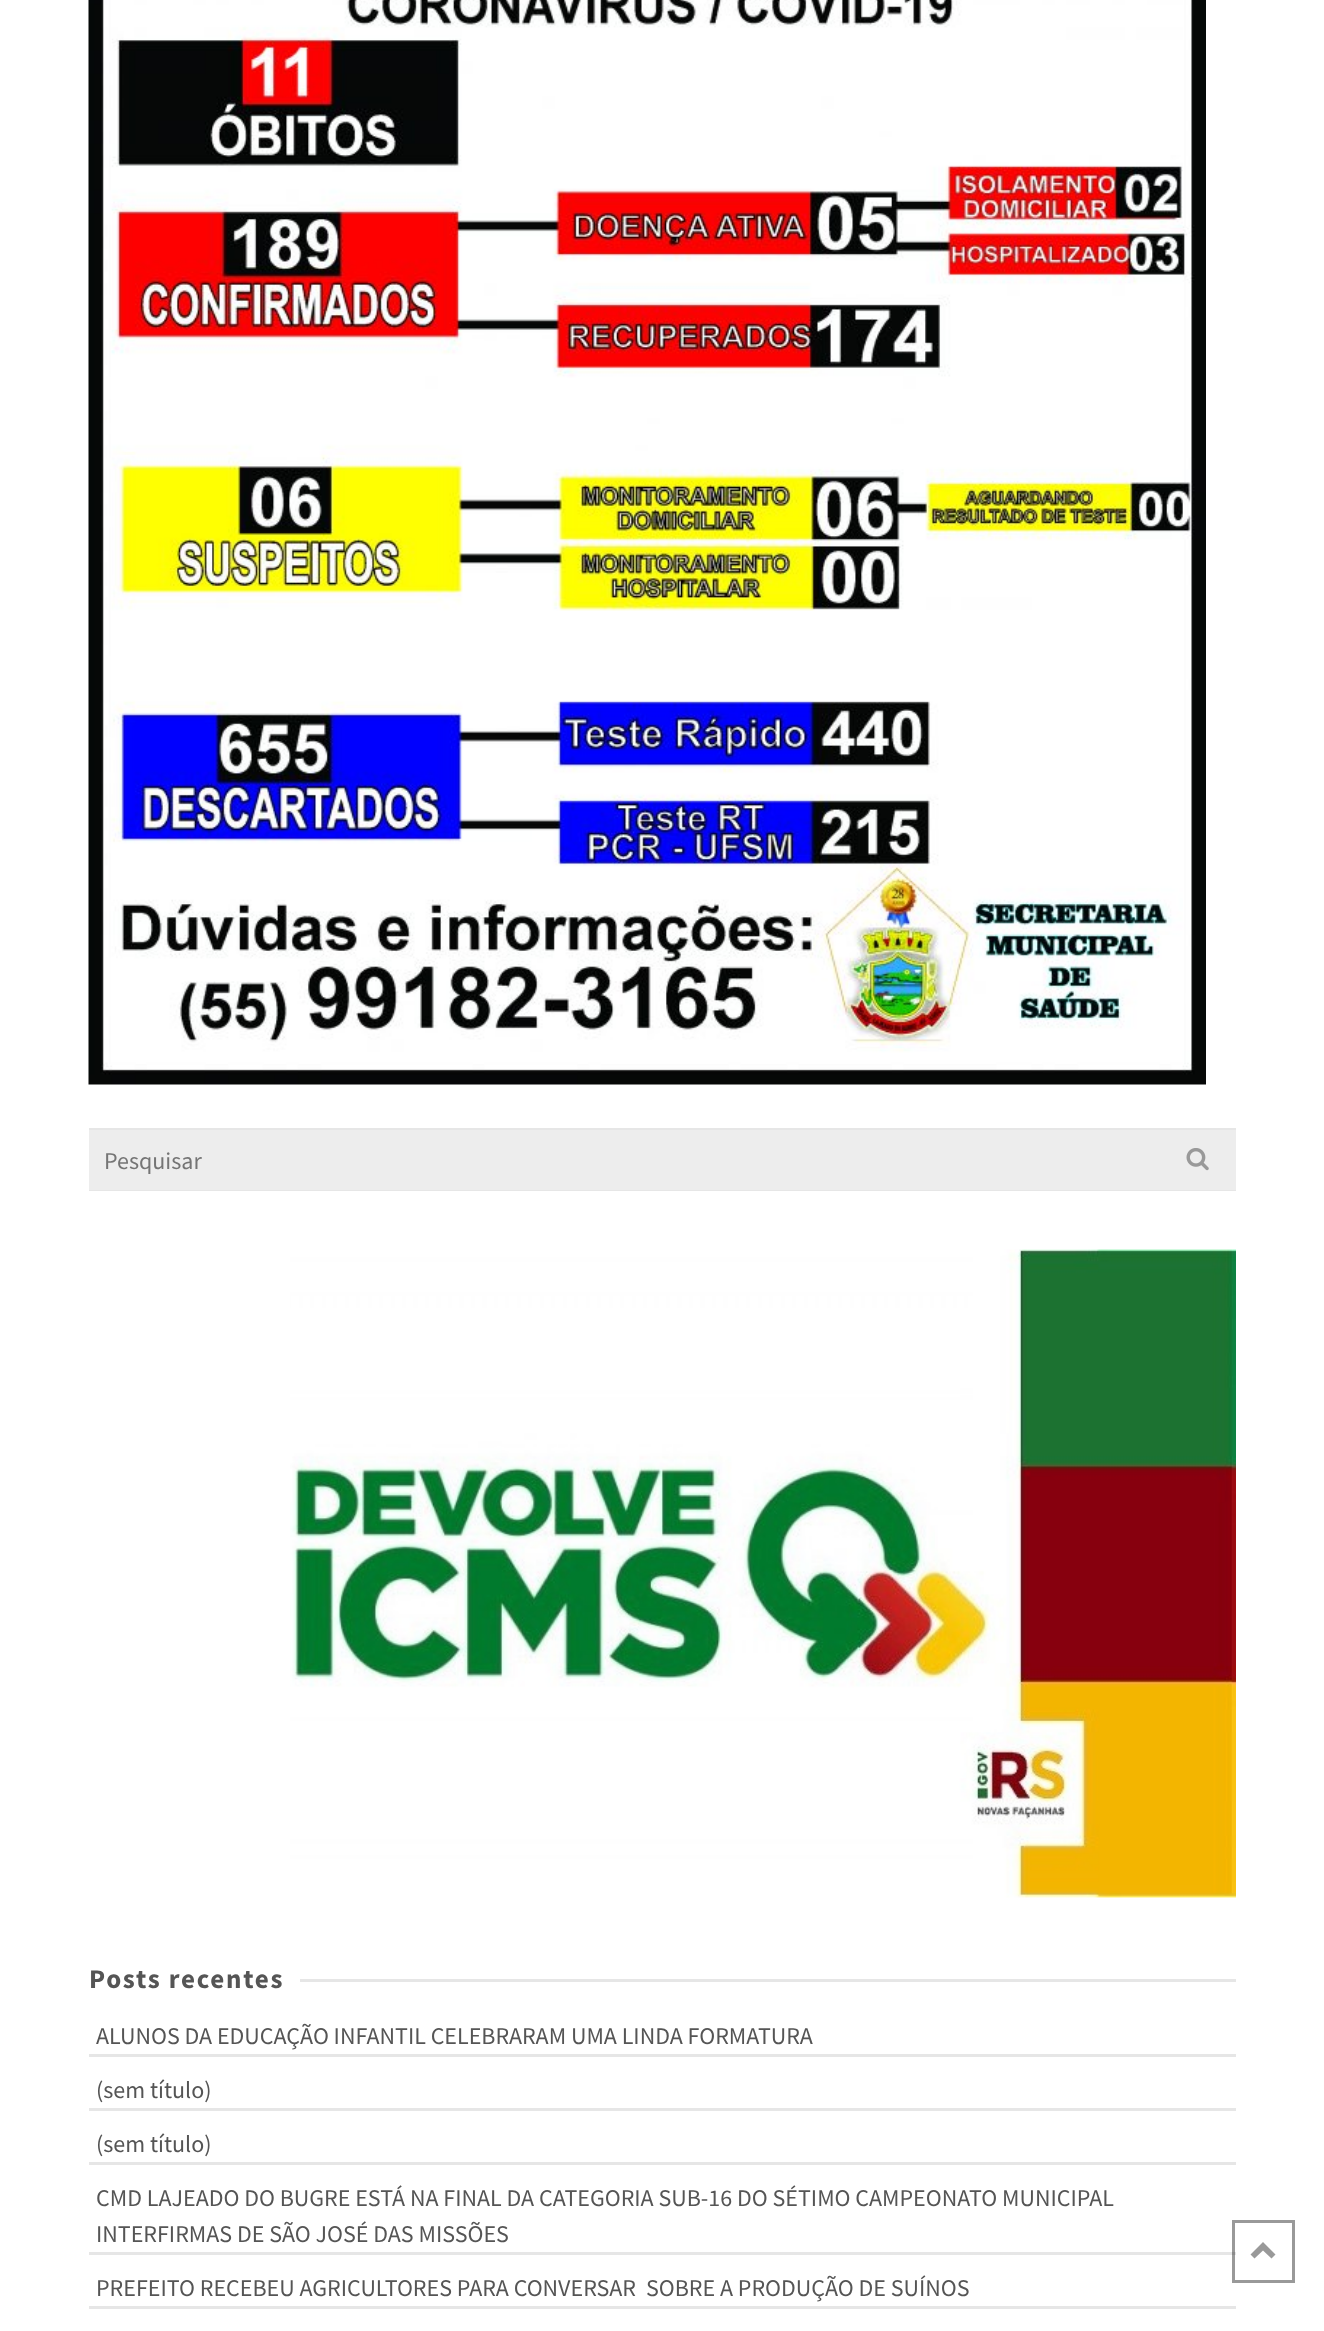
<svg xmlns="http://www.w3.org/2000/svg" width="1324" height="2331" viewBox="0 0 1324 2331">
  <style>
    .t1 { font: 24px Source Sans Pro; fill: #757575; }
    .t2 { font: bold 27px Source Sans Pro; letter-spacing: 1.75px; fill: #555; }
    .t3 { font: 24px Source Sans Pro; fill: #555; }
  </style>
  <rect width="100%" height="100%" fill="#fff"/>
  <image x="88" y="0" width="1118" height="1085" href="images/1.png"/>
  <rect x="89" y="1128" width="1147" height="2" fill="#e6e6e6"/>
  <rect x="89" y="1190" width="1147" height="1" fill="#e6e6e6"/>
  <rect x="89" y="1130" width="1147" height="60" fill="#ededed"/>
  <text x="104" y="1169" class="t1">Pesquisar</text>
  <image x="1186" y="1148" width="23" height="23" href="images/2.png"/>
  <image x="290" y="1249" width="946" height="649" href="images/3.png"/>
  <text x="89" y="1988" class="t2">Posts recentes</text>
  <rect x="300" y="1979" width="936" height="3" fill="#e6e6e6"/>
  <rect x="89" y="2054" width="1147" height="3" fill="#e6e6e6"/>
  <text x="96" y="2044" class="t3">ALUNOS DA EDUCAÇÃO INFANTIL CELEBRARAM UMA LINDA FORMATURA</text>
  <rect x="89" y="2108" width="1147" height="3" fill="#e6e6e6"/>
  <text x="96" y="2098" class="t3">(sem título)</text>
  <rect x="89" y="2162" width="1147" height="3" fill="#e6e6e6"/>
  <text x="96" y="2152" class="t3">(sem título)</text>
  <rect x="89" y="2252" width="1147" height="3" fill="#e6e6e6"/>
  <text x="96" y="2206" class="t3">CMD LAJEADO DO BUGRE ESTÁ NA FINAL DA CATEGORIA SUB-16 DO SÉTIMO CAMPEONATO MUNICIPAL</text>
  <text x="96" y="2242" class="t3">INTERFIRMAS DE SÃO JOSÉ DAS MISSÕES</text>
  <rect x="89" y="2306" width="1147" height="3" fill="#e6e6e6"/>
  <text x="96" y="2296" class="t3">PREFEITO RECEBEU AGRICULTORES PARA CONVERSAR</text>
  <text x="646" y="2296" class="t3">SOBRE A PRODUÇÃO DE SUÍNOS</text>
  <rect x="1233.5" y="2221.5" width="60" height="60" fill="none" stroke="#00000066" stroke-width="3"/>
  <path d="M1250.5 2254.5L1263 2242V2250.5L1254.5 2258.5ZM1263 2242L1275.5 2254.5L1271.5 2258.5L1263 2250.5Z" fill="#999"/>
</svg>
